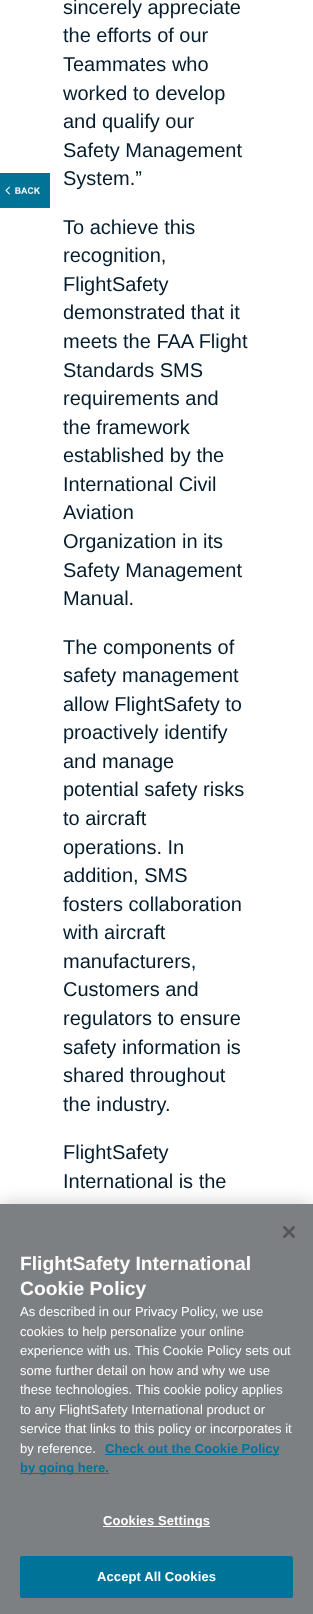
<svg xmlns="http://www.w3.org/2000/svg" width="313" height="1614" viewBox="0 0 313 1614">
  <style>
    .t1 { font: 20px Liberation Sans; fill: #041c2c; }
    .t2 { font: bold 19.25px Liberation Sans; fill: #fff; }
    .t3 { font: 13px Liberation Sans; fill: #fff; }
    .t4 { font: bold 13px Liberation Sans; fill: #007398; }
    .t5 { font: bold 13px Liberation Sans; letter-spacing: 0.1px; fill: #fff; }
  </style>
  <rect width="100%" height="100%" fill="#fff"/>
  <image x="0" y="173" width="50" height="35" href="images/1.png"/>
  <text x="63" y="14" class="t1">sincerely appreciate</text>
  <text x="63" y="42" class="t1">the efforts of our</text>
  <text x="63" y="71" class="t1">Teammates who</text>
  <text x="63" y="100" class="t1">worked to develop</text>
  <text x="63" y="128" class="t1">and qualify our</text>
  <text x="63" y="157" class="t1">Safety Management</text>
  <text x="63" y="185" class="t1">System.”</text>
  <text x="63" y="234" class="t1">To achieve this</text>
  <text x="63" y="262" class="t1">recognition,</text>
  <text x="63" y="291" class="t1">FlightSafety</text>
  <text x="63" y="319" class="t1">demonstrated that it</text>
  <text x="63" y="348" class="t1">meets the FAA Flight</text>
  <text x="63" y="377" class="t1">Standards SMS</text>
  <text x="63" y="405" class="t1">requirements and</text>
  <text x="63" y="434" class="t1">the framework</text>
  <text x="63" y="462" class="t1">established by the</text>
  <text x="63" y="491" class="t1">International Civil</text>
  <text x="63" y="519" class="t1">Aviation</text>
  <text x="63" y="548" class="t1">Organization in its</text>
  <text x="63" y="577" class="t1">Safety Management</text>
  <text x="63" y="605" class="t1">Manual.</text>
  <text x="63" y="654" class="t1">The components of</text>
  <text x="63" y="682" class="t1">safety management</text>
  <text x="63" y="711" class="t1">allow FlightSafety to</text>
  <text x="63" y="739" class="t1">proactively identify</text>
  <text x="63" y="768" class="t1">and manage</text>
  <text x="63" y="796" class="t1">potential safety risks</text>
  <text x="63" y="825" class="t1">to aircraft</text>
  <text x="63" y="854" class="t1">operations. In</text>
  <text x="63" y="882" class="t1">addition, SMS</text>
  <text x="63" y="911" class="t1">fosters collaboration</text>
  <text x="63" y="939" class="t1">with aircraft</text>
  <text x="63" y="968" class="t1">manufacturers,</text>
  <text x="63" y="996" class="t1">Customers and</text>
  <text x="63" y="1025" class="t1">regulators to ensure</text>
  <text x="63" y="1054" class="t1">safety information is</text>
  <text x="63" y="1082" class="t1">shared throughout</text>
  <text x="63" y="1111" class="t1">the industry.</text>
  <text x="63" y="1159" class="t1">FlightSafety</text>
  <text x="63" y="1188" class="t1">International is the</text>
  <rect x="0" y="1204" width="313" height="410" fill="#00000033" filter="blur(9px)"/>
  <rect x="0" y="1204" width="313" height="410" fill="#7d8083"/>
  <image x="283" y="1226" width="12" height="12" href="images/2.png"/>
  <text x="20" y="1270" class="t2">FlightSafety International</text>
  <text x="20" y="1295" class="t2">Cookie Policy</text>
  <text x="20" y="1316" class="t3">As described in our Privacy Policy, we use</text>
  <text x="20" y="1336" class="t3">cookies to help personalize your online</text>
  <text x="20" y="1355" class="t3">experience with us. This Cookie Policy sets out</text>
  <text x="20" y="1375" class="t3">some further detail on how and why we use</text>
  <text x="20" y="1394" class="t3">these technologies. This cookie policy applies</text>
  <text x="20" y="1414" class="t3">to any FlightSafety International product or</text>
  <text x="20" y="1433" class="t3">service that links to this policy or incorporates it</text>
  <text x="20" y="1453" class="t3">by reference.</text>
  <rect x="105" y="1454" width="174" height="1" fill="#007398"/>
  <text x="105" y="1453" class="t4">Check out the Cookie Policy</text>
  <rect x="20" y="1473" width="89" height="1" fill="#007398"/>
  <text x="20" y="1472" class="t4">by going here.</text>
  <rect x="103" y="1526" width="107" height="1" fill="#fff"/>
  <text x="103" y="1525" class="t5">Cookies Settings</text>
  <rect x="20.5" y="1556.5" width="272" height="41" rx="1.5" fill="#007398" stroke="#007398"/>
  <text x="97" y="1581" class="t5">Accept All Cookies</text>
</svg>
